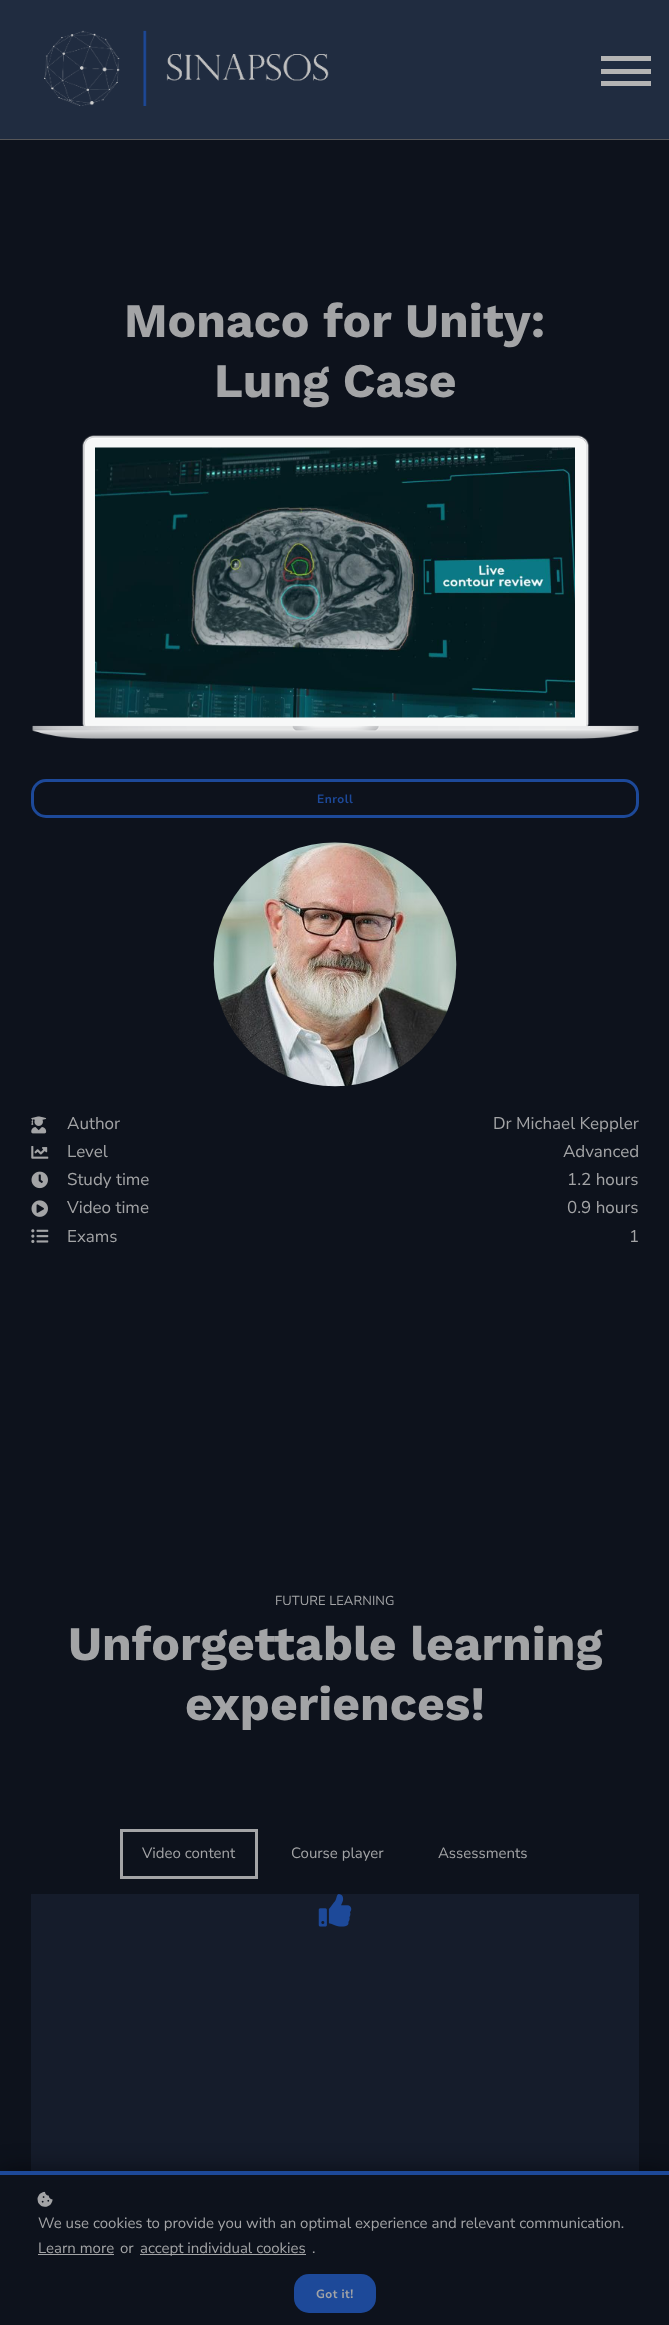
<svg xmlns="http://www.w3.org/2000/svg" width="669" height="2325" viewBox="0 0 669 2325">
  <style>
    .t1 { font: bold 48px Work Sans; fill: #a3a4a6; }
    .t2 { font: bold 12px Nunito Sans; letter-spacing: 0.5px; fill: #1d4999; }
    .t3 { font: 17px Nunito Sans; fill: #a3a4a6; }
    .t4 { font: 13px Nunito Sans; letter-spacing: 0.1px; fill: #a3a4a6; }
    .t5 { font: 15px Nunito Sans; fill: #a3a4a6; }
    .t6 { font: bold 12px Nunito Sans; letter-spacing: 0.5px; fill: #a3a4a6; }
  </style>
  <rect width="100%" height="100%" fill="#0d121c"/>
  <rect x="0" y="0" width="669" height="139" fill="#202c40"/>
  <rect x="0" y="139" width="669" height="1" fill="#565658"/>
  <image x="44" y="30" width="285" height="76" href="images/1.png"/>
  <rect x="601" y="81" width="50" height="5" fill="#b4b4b4"/>
  <rect x="601" y="56" width="50" height="5" fill="#b4b4b4"/>
  <rect x="601" y="69" width="50" height="5" fill="#b4b4b4"/>
  <text x="124" y="337" class="t1">Monaco for Unity:</text>
  <text x="214" y="397" class="t1">Lung Case</text>
  <image x="32" y="435" width="607" height="304" href="images/2.png"/>
  <rect x="95" y="717" width="480" height="1" fill="#fff"/>
  <image x="95" y="447" width="480" height="271" href="images/3.png"/>
  <rect x="32.5" y="780.5" width="605" height="36" rx="13.5" fill="none" stroke="#1d4999" stroke-width="3"/>
  <text x="317" y="803" class="t2">Enroll</text>
  <image x="213" y="842" width="244" height="245" href="images/4.png"/>
  <image x="31" y="1116" width="16" height="18" href="images/5.png"/>
  <text x="67" y="1129" class="t3">Author</text>
  <text x="493" y="1129" class="t3">Dr Michael Keppler</text>
  <image x="31" y="1146" width="18" height="13" href="images/6.png"/>
  <text x="67" y="1157" class="t3">Level</text>
  <text x="563" y="1157" class="t3">Advanced</text>
  <image x="31" y="1171" width="17" height="18" href="images/7.png"/>
  <text x="67" y="1185" class="t3">Study time</text>
  <text x="567" y="1185" class="t3">1.2 hours</text>
  <image x="31" y="1200" width="17" height="17" href="images/8.png"/>
  <text x="67" y="1213" class="t3">Video time</text>
  <text x="567" y="1213" class="t3">0.9 hours</text>
  <image x="31" y="1229" width="18" height="14" href="images/9.png"/>
  <text x="67" y="1242" class="t3">Exams</text>
  <text x="629" y="1242" class="t3">1</text>
  <text x="275" y="1605" class="t4">FUTURE LEARNING</text>
  <text x="68" y="1660" class="t1">Unforgettable learning</text>
  <text x="185" y="1720" class="t1">experiences!</text>
  <rect x="121.5" y="1830.5" width="135" height="47" fill="none" stroke="#a3a4a6" stroke-width="3"/>
  <text x="142" y="1858" class="t5">Video content</text>
  <text x="291" y="1858" class="t5">Course player</text>
  <text x="438" y="1858" class="t5">Assessments</text>
  <rect x="31" y="1894" width="608" height="277" fill="#151c2b"/>
  <image x="318" y="1894" width="34" height="33" href="images/10.png"/>
  <rect x="0" y="2171" width="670" height="154" fill="#00000080" filter="blur(12.5px)"/>
  <rect x="0" y="2175" width="669" height="150" fill="#0d121c"/>
  <rect x="0" y="2171" width="669" height="4" fill="#1d4999"/>
  <image x="37" y="2191" width="16" height="16" href="images/11.png"/>
  <text x="38" y="2228" class="t5">We use cookies to provide you with an optimal experience and relevant communication.</text>
  <text x="38" y="2253" class="t5">Learn more</text>
  <rect x="38" y="2254" width="76" height="1" fill="#a3a4a6"/>
  <text x="120" y="2253" class="t5">or</text>
  <rect x="140" y="2254" width="166" height="1" fill="#a3a4a6"/>
  <text x="140" y="2253" class="t5">accept individual cookies</text>
  <text x="312" y="2253" class="t5">.</text>
  <rect x="294" y="2274" width="82" height="39" rx="15" fill="#1d4999"/>
  <text x="316" y="2298" class="t6">Got it!</text>
</svg>
